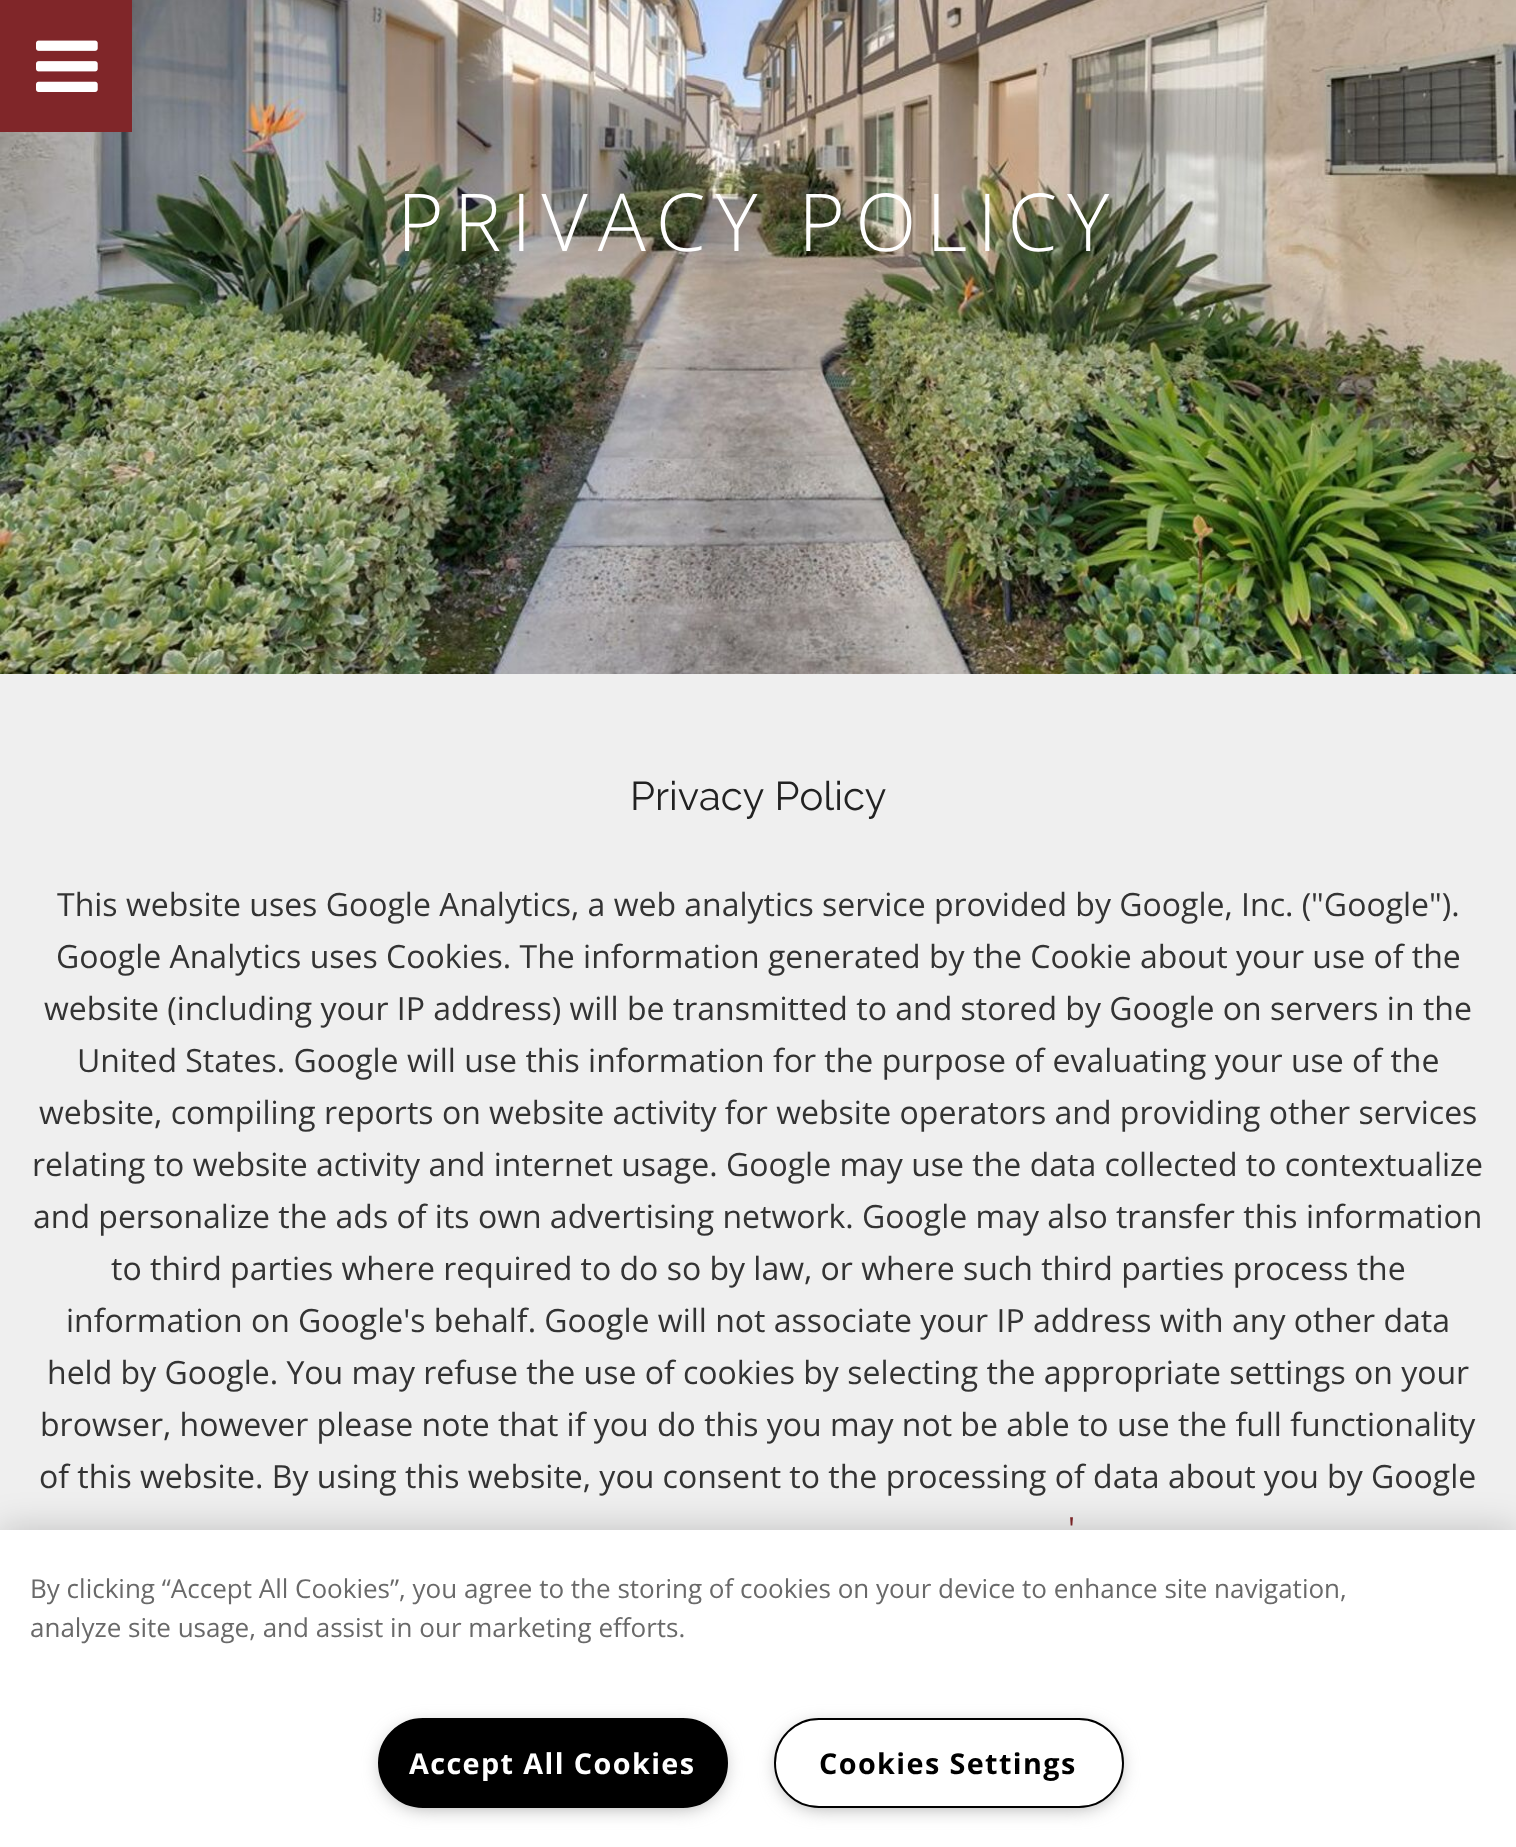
<svg xmlns="http://www.w3.org/2000/svg" width="1516" height="1847" viewBox="0 0 1516 1847">
  <style>*{font-kerning:none!important;font-variant-ligatures:none!important}</style>
  <style>
    .t1 { font: 300 80px Open Sans; letter-spacing: 10px; fill: #fff; }
    .t2 { font: 40px Raleway; fill: #222; }
    .t3 { font: 32px Open Sans; fill: #333; }
    .t4 { font: 32px Open Sans; fill: #802629; }
    .t5 { font: 26.02px Open Sans; fill: #696969; }
    .t6 { font: bold 28.75px Open Sans; letter-spacing: 1.4px; fill: #fff; }
    .t7 { font: bold 28.75px Open Sans; letter-spacing: 1.4px; fill: #000; }
  </style>
  <rect width="100%" height="100%" fill="#efefef"/>
  <image x="0" y="0" width="1516" height="674" href="images/2.png"/>
  <rect x="0" y="0" width="132" height="132" fill="#802629"/>
  <image x="36" y="40" width="62" height="52" href="images/1.png"/>
  <text x="397" y="251" class="t1">PRIVACY POLICY</text>
  <text x="630" y="810" class="t2">Privacy Policy</text>
  <text x="57" y="916" class="t3">This website uses Google Analytics, a web analytics service provided by Google, Inc. ("Google").</text>
  <text x="56" y="968" class="t3">Google Analytics uses Cookies. The information generated by the Cookie about your use of the</text>
  <text x="44" y="1020" class="t3">website (including your IP address) will be transmitted to and stored by Google on servers in the</text>
  <text x="77" y="1072" class="t3">United States. Google will use this information for the purpose of evaluating your use of the</text>
  <text x="39" y="1124" class="t3">website, compiling reports on website activity for website operators and providing other services</text>
  <text x="32" y="1176" class="t3">relating to website activity and internet usage. Google may use the data collected to contextualize</text>
  <text x="33" y="1228" class="t3">and personalize the ads of its own advertising network. Google may also transfer this information</text>
  <text x="111" y="1280" class="t3">to third parties where required to do so by law, or where such third parties process the</text>
  <text x="66" y="1332" class="t3">information on Google's behalf. Google will not associate your IP address with any other data</text>
  <text x="47" y="1384" class="t3">held by Google. You may refuse the use of cookies by selecting the appropriate settings on your</text>
  <text x="40" y="1436" class="t3">browser, however please note that if you do this you may not be able to use the full functionality</text>
  <text x="39" y="1488" class="t3">of this website. By using this website, you consent to the processing of data about you by Google</text>
  <text x="1068" y="1540" class="t4">'</text>
  <rect x="0" y="1530" width="1516" height="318" fill="#00000033" filter="blur(18px)"/>
  <rect x="0" y="1530" width="1516" height="317" fill="#fff"/>
  <text x="30" y="1598" class="t5">By clicking “Accept All Cookies”, you agree to the storing of cookies on your device to enhance site navigation,</text>
  <text x="30" y="1637" class="t5">analyze site usage, and assist in our marketing efforts.</text>
  <rect x="384" y="1728" width="338" height="78" rx="39" fill="#999" filter="blur(10px)"/>
  <rect x="379" y="1719" width="348" height="88" rx="44" fill="#000" stroke="#000" stroke-width="2"/>
  <text x="409" y="1774" class="t6">Accept All Cookies</text>
  <rect x="780" y="1728" width="338" height="78" rx="39" fill="#999" filter="blur(10px)"/>
  <rect x="775" y="1719" width="348" height="88" rx="44" fill="#fff" stroke="#000" stroke-width="2"/>
  <text x="819" y="1774" class="t7">Cookies Settings</text>
</svg>
